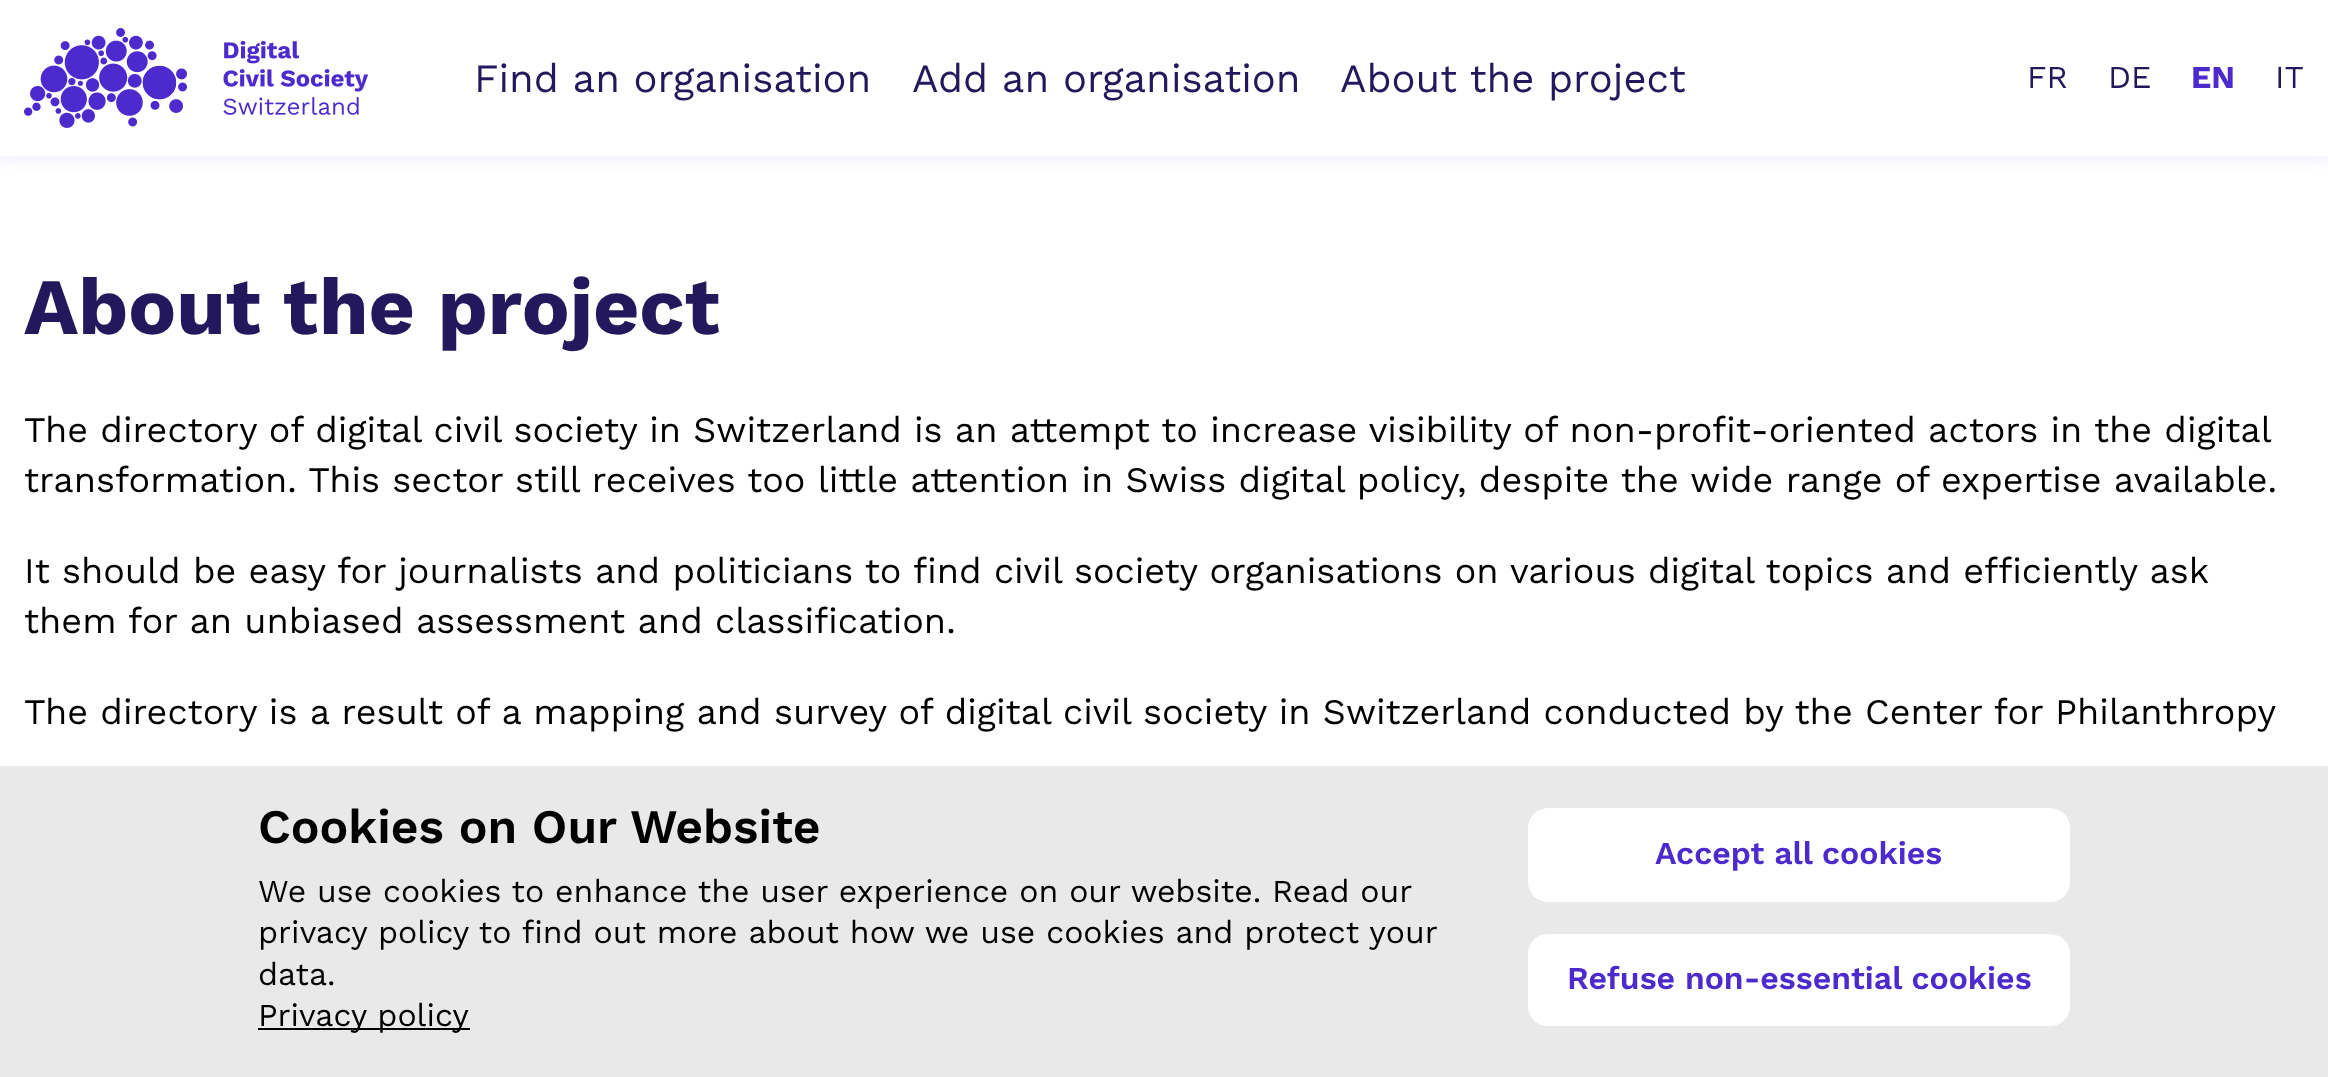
<svg xmlns="http://www.w3.org/2000/svg" width="2328" height="1077" viewBox="0 0 2328 1077">
  <style>
    .t1 { font: 40px Work Sans; fill: #22185b; }
    .t2 { font: 32px Work Sans; fill: #22185b; }
    .t3 { font: bold 32px Work Sans; fill: #4d2acd; }
    .t4 { font: bold 80px Work Sans; fill: #22185b; }
    .t5 { font: 36px Work Sans; fill: #000; }
    .t6 { font: 600 48px Work Sans; fill: #000; }
    .t7 { font: 32px Work Sans; fill: #000; }
    .t8 { font: 600 32px Work Sans; fill: #4d2acd; }
  </style>
  <defs>
    <clipPath id="clip1"><rect x="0" y="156" width="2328" height="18"/></clipPath>
  </defs>
  <rect width="100%" height="100%" fill="#fff"/>
  <g clip-path="url(#clip1)">
    <rect x="0" y="6" width="2328" height="156" fill="#f4f0fe" filter="blur(6px)"/>
  </g>
  <image x="24" y="28" width="345" height="100" href="images/1.png"/>
  <text x="474" y="92" class="t1">Find an organisation</text>
  <text x="912" y="92" class="t1">Add an organisation</text>
  <text x="1340" y="92" class="t1">About the project</text>
  <text x="2027" y="88" class="t2">FR</text>
  <text x="2108" y="88" class="t2">DE</text>
  <text x="2191" y="88" class="t3">EN</text>
  <text x="2275" y="88" class="t2">IT</text>
  <text x="24" y="334" class="t4">About the project</text>
  <text x="24" y="442" class="t5">The directory of digital civil society in Switzerland is an attempt to increase visibility of non-profit-oriented actors in the digital</text>
  <text x="24" y="492" class="t5">transformation. This sector still receives too little attention in Swiss digital policy, despite the wide range of expertise available.</text>
  <text x="24" y="583" class="t5">It should be easy for journalists and politicians to find civil society organisations on various digital topics and efficiently ask</text>
  <text x="24" y="633" class="t5">them for an unbiased assessment and classification.</text>
  <text x="24" y="724" class="t5">The directory is a result of a mapping and survey of digital civil society in Switzerland conducted by the Center for Philanthropy</text>
  <rect x="0" y="766" width="2328" height="311" fill="#e9e9e9"/>
  <text x="258" y="843" class="t6">Cookies on Our Website</text>
  <text x="258" y="902" class="t7">We use cookies to enhance the user experience on our website. Read our</text>
  <text x="258" y="943" class="t7">privacy policy to find out more about how we use cookies and protect your</text>
  <text x="258" y="985" class="t7">data.</text>
  <rect x="258" y="1028" width="212" height="2" fill="#000"/>
  <text x="258" y="1026" class="t7">Privacy policy</text>
  <rect x="1528" y="808" width="542" height="94" rx="20" fill="#fff"/>
  <text x="1655" y="864" class="t8">Accept all cookies</text>
  <rect x="1528" y="934" width="542" height="92" rx="20" fill="#fff"/>
  <text x="1567" y="989" class="t8">Refuse non-essential cookies</text>
</svg>
